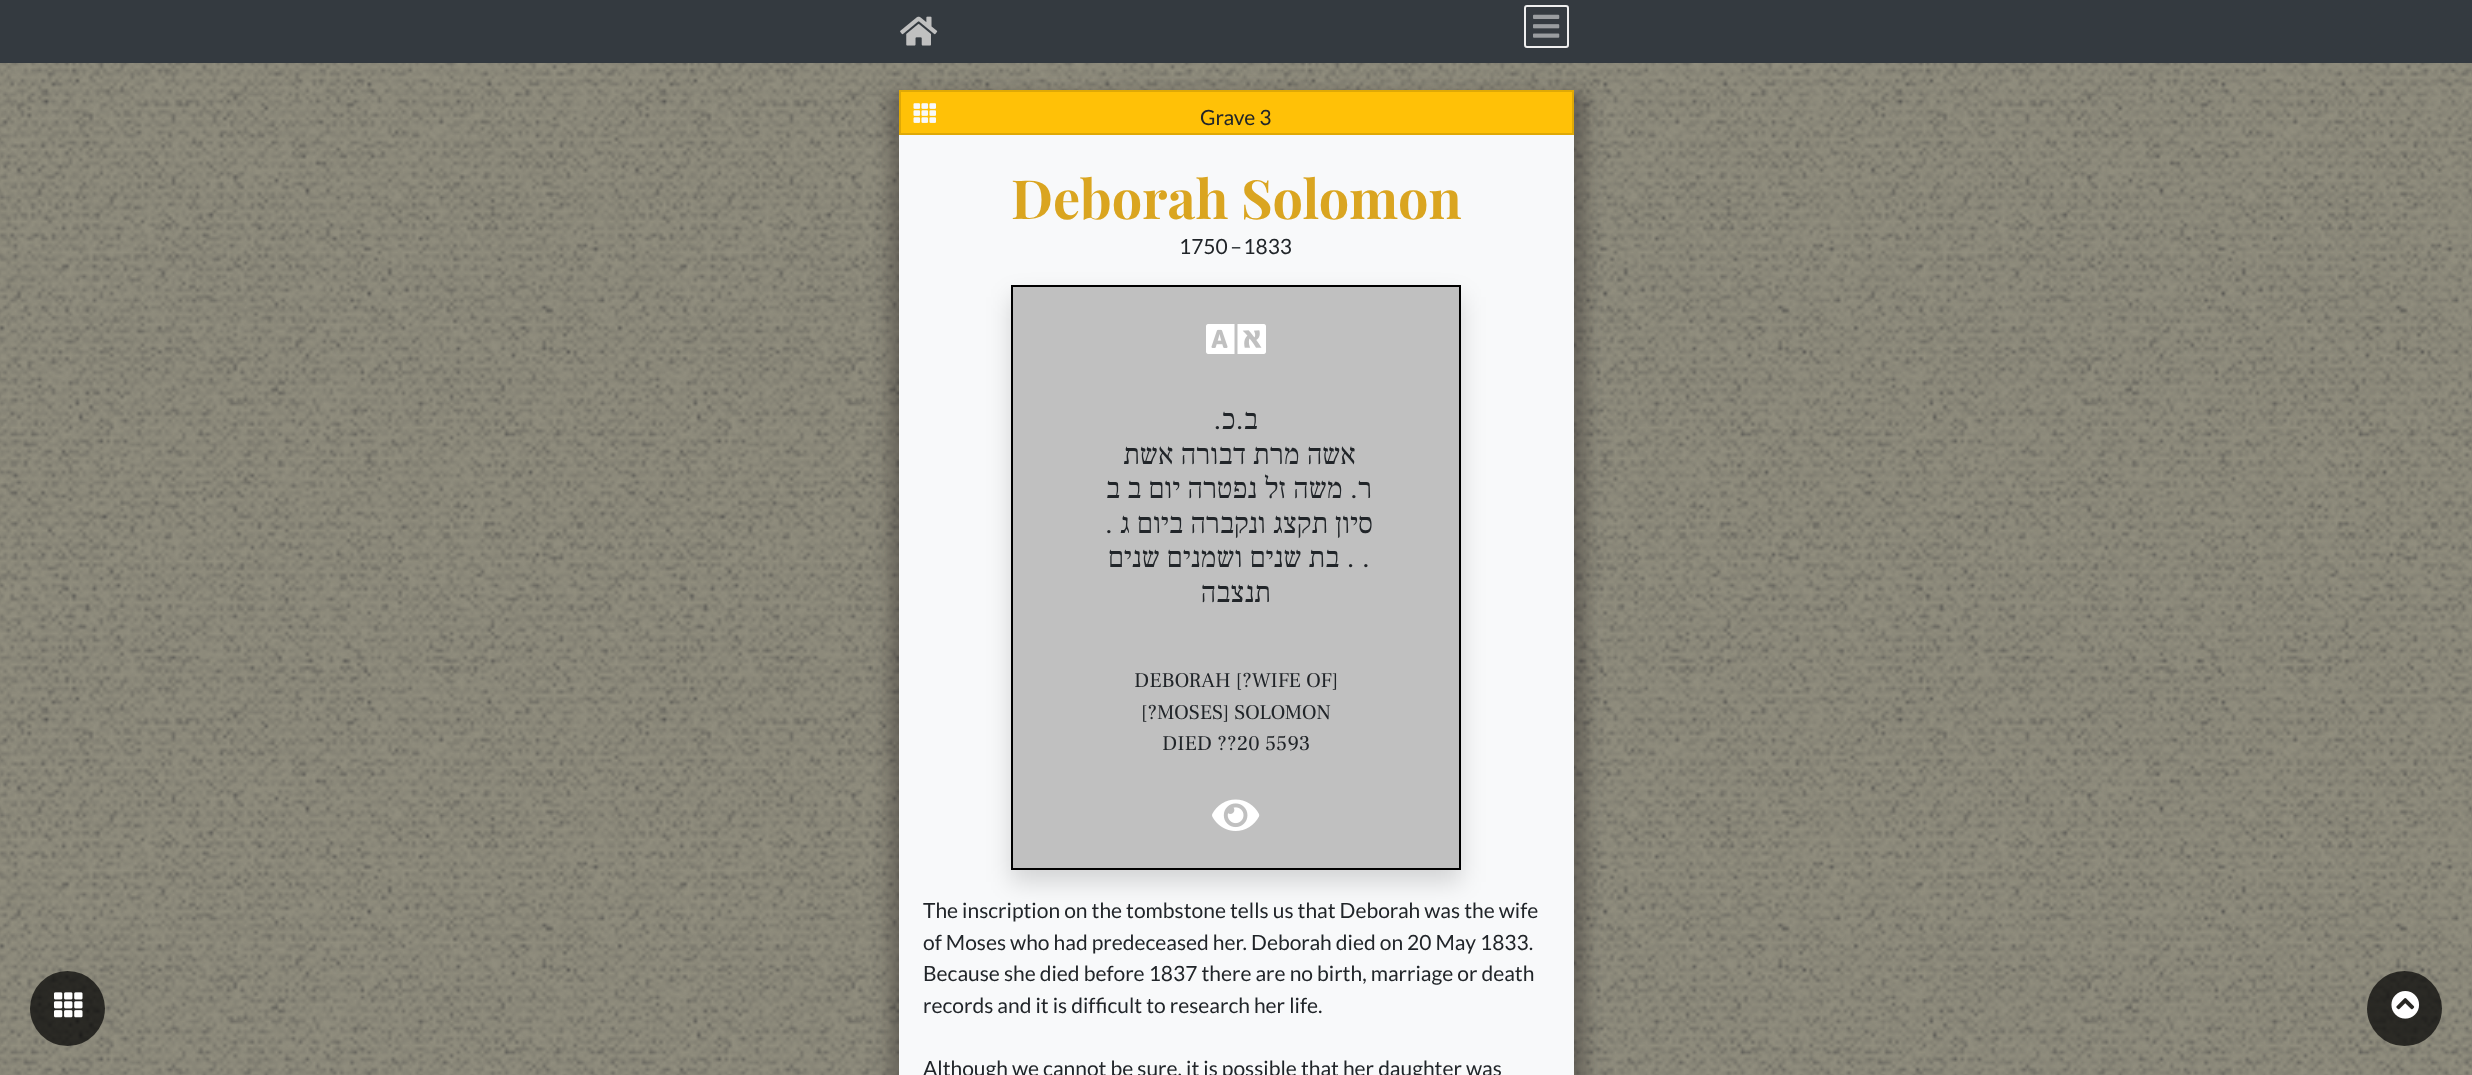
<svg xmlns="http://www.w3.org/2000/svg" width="2472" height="1075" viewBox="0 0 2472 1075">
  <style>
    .t1 { font: 21px Lato; fill: #212529; }
    .t2 { font: bold 54px Playfair Display; fill: #daa520; }
    .t3 { font: 29.5px Frank Ruhl Libre; direction: rtl; fill: #212529; }
    .t4 { font: 21px Frank Ruhl Libre; fill: #212529; }
  </style>
  <rect width="100%" height="100%" fill="#fff"/>
  <image x="0" y="63" width="2472" height="1012" href="images/1.png"/>
  <circle cx="67.5" cy="1008.5" r="37.5" fill="#000000b3"/>
  <image x="54" y="992" width="29" height="26" href="images/2.png"/>
  <rect x="0" y="0" width="2472" height="63" fill="#343a40"/>
  <image x="900" y="16" width="38" height="30" href="images/3.png"/>
  <rect x="1525" y="6" width="43" height="41" rx="2" fill="none" stroke="#eee" stroke-width="2"/>
  <image x="1533" y="14" width="27" height="24" href="images/4.png"/>
  <rect x="890" y="93" width="696" height="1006" fill="#2a262661" filter="blur(8px)"/>
  <rect x="899" y="135" width="675" height="940" fill="#f8f9fa"/>
  <rect x="900" y="91" width="673" height="43" fill="#ffc107" stroke="#dfa906" stroke-width="2"/>
  <image x="913" y="103" width="23" height="20" href="images/5.png"/>
  <text x="1200" y="125" class="t1">Grave 3</text>
  <text x="1011" y="219" class="t2">Deborah Solomon</text>
  <text x="1179" y="254" class="t1">1750  – 1833</text>
  <rect x="1011" y="297" width="450" height="585" fill="#00000026" filter="blur(12px)"/>
  <rect x="1012" y="286" width="448" height="583" fill="#c0c0c0" stroke="#000" stroke-width="2"/>
  <image x="1206" y="324" width="60" height="30" href="images/6.png"/>
  <text x="1258" y="429" class="t3">ב.כ.</text>
  <text x="1356" y="464" class="t3">אשה מרת דבורה אשת</text>
  <text x="1372" y="498" class="t3">ר. משה זל נפטרה יום ב ב</text>
  <text x="1373" y="533" class="t3">סיון תקצג ונקברה ביום ג .</text>
  <text x="1370" y="567" class="t3">. . בת שנים ושמנים שנים</text>
  <text x="1271" y="602" class="t3">תנצבה</text>
  <text x="1134" y="687" class="t4">DEBORAH [?WIFE OF]</text>
  <text x="1141" y="719" class="t4">[?MOSES] SOLOMON</text>
  <text x="1162" y="750" class="t4">DIED ??20 5593</text>
  <image x="1212" y="799" width="48" height="32" href="images/7.png"/>
  <text x="923" y="918" class="t1">The inscription on the tombstone tells us that Deborah was the wife</text>
  <text x="923" y="950" class="t1">of Moses who had predeceased her. Deborah died on 20 May 1833.</text>
  <text x="923" y="981" class="t1">Because she died before 1837 there are no birth, marriage or death</text>
  <text x="923" y="1013" class="t1">records and it is difficult to research her life.</text>
  <text x="923" y="1076" class="t1">Although we cannot be sure, it is possible that her daughter was</text>
  <circle cx="2404.5" cy="1008.5" r="37.5" fill="#000000b3"/>
  <image x="2391" y="991" width="29" height="28" href="images/8.png"/>
</svg>
